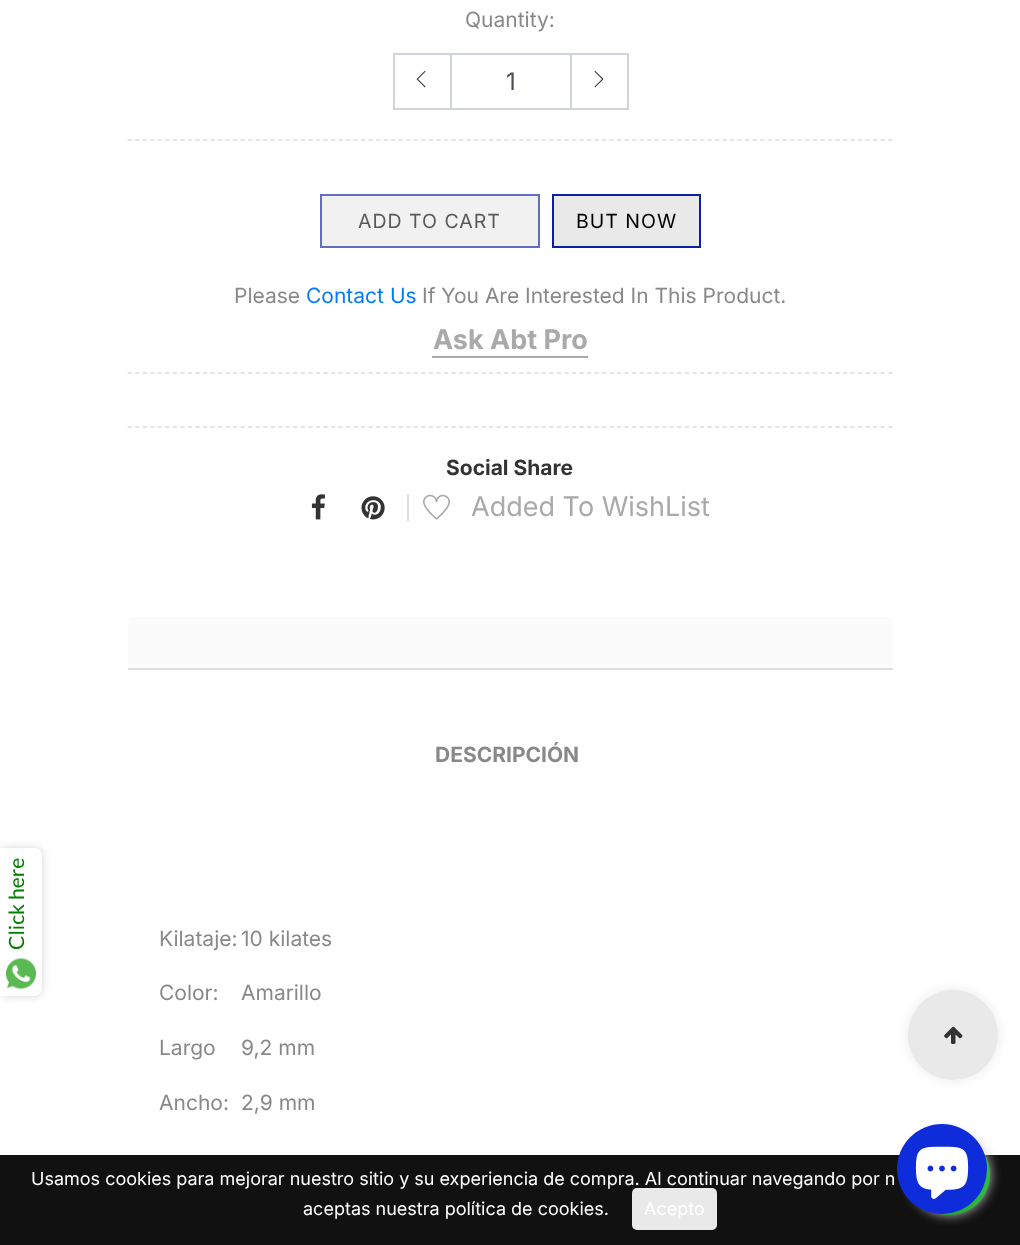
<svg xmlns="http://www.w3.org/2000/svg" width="1020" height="1245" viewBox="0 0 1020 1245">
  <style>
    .t1 { font: 21px Lato; fill: #008000; }
    .t2 { font: 21px Inter; fill: #888; }
    .t3 { font: 24px Inter; fill: #495057; }
    .t4 { font: 19.5px Inter; letter-spacing: 1px; fill: #595959; }
    .t5 { font: 19.5px Inter; letter-spacing: 1px; fill: #000; }
    .t6 { font: 21px Inter; fill: #007bff; }
    .t7 { font: bold 27px Inter; fill: #a9a9a9; }
    .t8 { font: bold 21px Inter; fill: #333; }
    .t9 { font: 27px Inter; fill: #a9a9a9; }
    .t10 { font: bold 21px Inter; fill: #888; }
    .t11 { font: 18px Inter; fill: #fff; }
  </style>
  <rect width="100%" height="100%" fill="#fff"/>
  <rect x="128" y="669" width="765" height="1" fill="#e0e0e0"/>
  <rect x="0" y="848" width="42" height="148" rx="8" fill="#d3d3d3" filter="blur(4px)"/>
  <path d="M0 848H34C38.5 848 42 851.5 42 856V988C42 992.5 38.5 996 34 996H0Z" fill="#fff"/>
  <text x="24" y="950" transform="rotate(-90 24 950)" class="t1">Click here</text>
  <image x="6" y="958" width="30" height="31" href="images/1.png"/>
  <text x="465" y="27" class="t2">Quantity:</text>
  <rect x="394" y="54" width="57" height="55" fill="none" stroke="#ced4da" stroke-width="2"/>
  <image x="416" y="70" width="10" height="18" href="images/2.png"/>
  <rect x="450" y="53" width="120" height="2" fill="#ced4da"/>
  <rect x="450" y="108" width="120" height="2" fill="#ced4da"/>
  <text x="506" y="90" class="t3">1</text>
  <rect x="571" y="54" width="57" height="55" fill="none" stroke="#ced4da" stroke-width="2"/>
  <image x="594" y="70" width="10" height="18" href="images/3.png"/>
  <path d="M127.5 140H892.5" fill="none" stroke="#ddd" stroke-width="1.5" stroke-dasharray="4.5 3.03"/>
  <rect x="321" y="195" width="218" height="52" fill="#f1f1f1" stroke="#626ec0" stroke-width="2"/>
  <text x="358" y="228" class="t4">ADD TO CART</text>
  <rect x="553" y="195" width="147" height="52" fill="#e9e9e9" stroke="#0d209e" stroke-width="2"/>
  <text x="576" y="228" class="t5">BUT NOW</text>
  <text x="234" y="303" class="t2">Please</text>
  <text x="306" y="303" class="t6">Contact Us</text>
  <text x="422" y="303" class="t2">If You Are Interested In This Product.</text>
  <text x="433" y="349" class="t7">Ask Abt Pro</text>
  <rect x="432" y="356" width="156" height="2" fill="#a9a9a9"/>
  <path d="M127.5 373H892.5" fill="none" stroke="#ddd" stroke-width="1.5" stroke-dasharray="4.5 3.03"/>
  <path d="M127.5 427H892.5" fill="none" stroke="#ddd" stroke-width="1.5" stroke-dasharray="4.5 3.03"/>
  <text x="446" y="475" class="t8">Social Share</text>
  <image x="311" y="494" width="14" height="26" href="images/4.png"/>
  <image x="361" y="496" width="24" height="24" href="images/5.png"/>
  <rect x="407" y="494" width="2" height="27" fill="#ddd"/>
  <image x="423" y="494" width="27" height="26" href="images/6.png"/>
  <text x="471" y="516" class="t9">Added To WishList</text>
  <path d="M133 617H888C891 617 893 619 893 622V669H128V622C128 619 130 617 133 617Z" fill="#fbfbfb"/>
  <rect x="128" y="668" width="765" height="1" fill="#ddd"/>
  <text x="435" y="762" class="t10">DESCRIPCIÓN</text>
  <text x="159" y="946" class="t2">Kilataje:</text>
  <text x="241" y="946" class="t2">10 kilates</text>
  <text x="159" y="1000" class="t2">Color:</text>
  <text x="241" y="1000" class="t2">Amarillo</text>
  <text x="159" y="1055" class="t2">Largo</text>
  <text x="241" y="1055" class="t2">9,2 mm</text>
  <text x="159" y="1110" class="t2">Ancho:</text>
  <text x="241" y="1110" class="t2">2,9 mm</text>
  <rect x="905" y="987" width="96" height="96" rx="48" fill="#0000000d" filter="blur(4px)"/>
  <circle cx="953" cy="1035" r="45" fill="#e9e9e9"/>
  <image x="944" y="1026" width="19" height="18" href="images/7.png"/>
  <rect x="0" y="1155" width="1020" height="90" fill="#111"/>
  <rect x="909" y="1134" width="81" height="81" rx="40.5" fill="#c2c2c2" filter="blur(6px)"/>
  <image x="937" y="1150" width="53" height="65" href="images/8.png"/>
  <text x="31" y="1185" class="t11">Usamos cookies para mejorar nuestro sitio y su experiencia de compra. Al continuar navegando por n</text>
  <text x="303" y="1215" class="t11">aceptas nuestra política de cookies.</text>
  <rect x="632" y="1188" width="85" height="42" rx="5" fill="#e9e9e9"/>
  <text x="644" y="1215" class="t11">Acepto</text>
  <circle cx="942" cy="1169" r="45" fill="#0e2cda"/>
  <image x="915" y="1146" width="54" height="53" href="images/9.png"/>
</svg>
